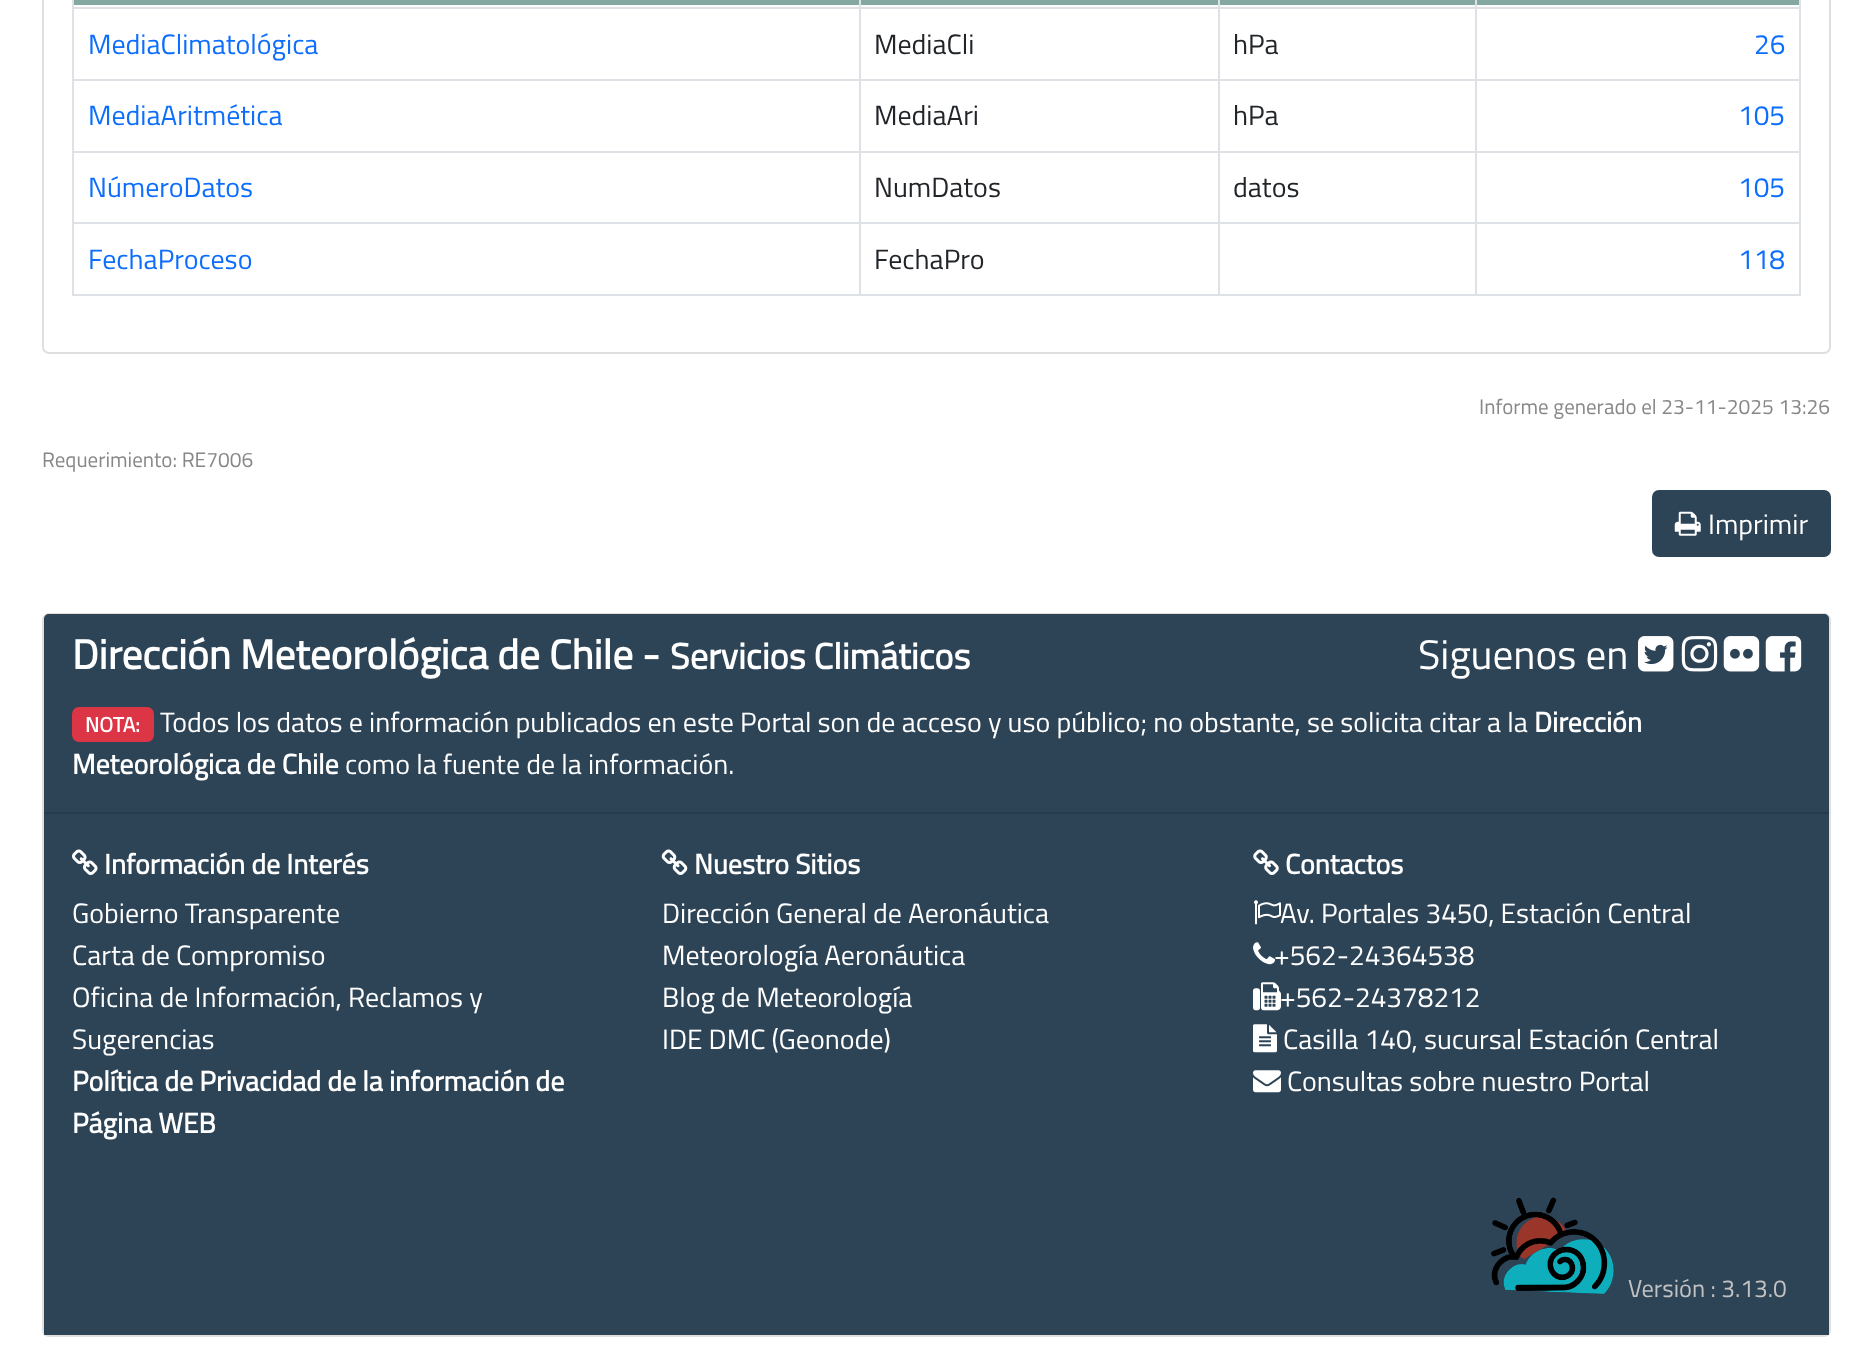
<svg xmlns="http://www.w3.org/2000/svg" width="1872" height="1364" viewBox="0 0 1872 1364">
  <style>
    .t1 { font: 28px Titillium Web; fill: #0d6efd; }
    .t2 { font: 28px Titillium Web; fill: #212529; }
    .t3 { font: 21px Titillium Web; fill: #878787; }
    .t4 { font: 28px Titillium Web; fill: #fff; }
    .t5 { font: bold 41.25px Titillium Web; fill: #fff; }
    .t6 { font: bold 36.25px Titillium Web; fill: #fff; }
    .t7 { font: 41.25px Titillium Web; fill: #fff; }
    .t8 { font: bold 21px Titillium Web; fill: #fff; }
    .t9 { font: bold 28px Titillium Web; fill: #fff; }
    .t10 { font: 24.5px Titillium Web; fill: #c2c2c2; }
  </style>
  <rect width="100%" height="100%" fill="#fff"/>
  <rect x="43" y="-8" width="1787" height="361" rx="6" fill="none" stroke="#dfdfdf" stroke-width="2"/>
  <rect x="74" y="0" width="1727" height="5" fill="#84a7a1"/>
  <rect x="72" y="7" width="1729" height="2" fill="#dee2e6"/>
  <text x="88" y="54" class="t1">MediaClimatológica</text>
  <text x="874" y="54" class="t2">MediaCli</text>
  <text x="1233" y="54" class="t2">hPa</text>
  <text x="1754" y="54" class="t1">26</text>
  <rect x="72" y="79" width="1729" height="2" fill="#dee2e6"/>
  <text x="88" y="125" class="t1">MediaAritmética</text>
  <text x="874" y="125" class="t2">MediaAri</text>
  <text x="1233" y="125" class="t2">hPa</text>
  <text x="1738" y="125" class="t1">105</text>
  <rect x="72" y="151" width="1729" height="2" fill="#dee2e6"/>
  <text x="88" y="197" class="t1">NúmeroDatos</text>
  <text x="874" y="197" class="t2">NumDatos</text>
  <text x="1233" y="197" class="t2">datos</text>
  <text x="1738" y="197" class="t1">105</text>
  <rect x="72" y="222" width="1729" height="2" fill="#dee2e6"/>
  <rect x="72" y="294" width="1729" height="2" fill="#dee2e6"/>
  <rect x="72" y="0" width="2" height="296" fill="#dee2e6"/>
  <text x="88" y="269" class="t1">FechaProceso</text>
  <rect x="859" y="0" width="2" height="296" fill="#dee2e6"/>
  <text x="874" y="269" class="t2">FechaPro</text>
  <rect x="1218" y="0" width="2" height="296" fill="#dee2e6"/>
  <rect x="1799" y="0" width="2" height="296" fill="#dee2e6"/>
  <rect x="1475" y="0" width="2" height="296" fill="#dee2e6"/>
  <text x="1738" y="269" class="t1">118</text>
  <text x="1479" y="414" class="t3">Informe generado el 23-11-2025 13:26</text>
  <text x="42" y="467" class="t3">Requerimiento: RE7006</text>
  <rect x="1652" y="490" width="179" height="67" rx="7" fill="#2d4356"/>
  <image x="1674" y="511" width="27" height="25" href="images/1.png"/>
  <text x="1708" y="534" class="t4">Imprimir</text>
  <rect x="43" y="614" width="1787" height="722" rx="6" fill="none" stroke="#dfdfdf" stroke-width="2"/>
  <path d="M49 614H1824C1827 614 1829 616 1829 619V814H44V619C44 616 46 614 49 614Z" fill="#2d4356"/>
  <rect x="44" y="812" width="1785" height="2" fill="#273b4b"/>
  <text x="72" y="669" class="t5">Dirección Meteorológica de Chile -</text>
  <text x="670" y="669" class="t6">Servicios Climáticos</text>
  <text x="1418" y="669" class="t7">Siguenos en</text>
  <image x="1638" y="636" width="36" height="36" href="images/2.png"/>
  <image x="1681" y="636" width="37" height="36" href="images/3.png"/>
  <image x="1723" y="636" width="37" height="36" href="images/4.png"/>
  <image x="1765" y="636" width="37" height="36" href="images/5.png"/>
  <rect x="72" y="707" width="82" height="35" rx="7" fill="#dc3545"/>
  <text x="85" y="732" class="t8">NOTA:</text>
  <text x="160" y="732" class="t4">Todos los datos e información publicados en este Portal son de acceso y uso público; no obstante, se solicita citar a la</text>
  <text x="1534" y="732" class="t9">Dirección</text>
  <text x="72" y="774" class="t9">Meteorológica de Chile</text>
  <text x="345" y="774" class="t4">como la fuente de la información.</text>
  <rect x="44" y="814" width="1785" height="521" fill="#2d4356"/>
  <image x="72" y="849" width="26" height="26" href="images/6.png"/>
  <text x="104" y="874" class="t9">Información de Interés</text>
  <text x="72" y="923" class="t4">Gobierno Transparente</text>
  <text x="72" y="965" class="t4">Carta de Compromiso</text>
  <text x="72" y="1007" class="t4">Oficina de Información, Reclamos y</text>
  <text x="72" y="1049" class="t4">Sugerencias</text>
  <text x="72" y="1091" class="t9">Política de Privacidad de la información de</text>
  <text x="72" y="1133" class="t9">Página WEB</text>
  <image x="661" y="849" width="27" height="26" href="images/7.png"/>
  <text x="694" y="874" class="t9">Nuestro Sitios</text>
  <text x="662" y="923" class="t4">Dirección General de Aeronáutica</text>
  <text x="662" y="965" class="t4">Meteorología Aeronáutica</text>
  <text x="662" y="1007" class="t4">Blog de Meteorología</text>
  <text x="662" y="1049" class="t4">IDE DMC (Geonode)</text>
  <image x="1253" y="849" width="26" height="26" href="images/8.png"/>
  <text x="1285" y="874" class="t9">Contactos</text>
  <image x="1254" y="900" width="27" height="25" href="images/9.png"/>
  <text x="1280" y="923" class="t4">Av. Portales 3450, Estación Central</text>
  <image x="1253" y="942" width="22" height="23" href="images/10.png"/>
  <text x="1274" y="965" class="t4">+562-24364538</text>
  <image x="1253" y="982" width="28" height="29" href="images/11.png"/>
  <text x="1280" y="1007" class="t4">+562-24378212</text>
  <image x="1253" y="1024" width="24" height="29" href="images/12.png"/>
  <text x="1283" y="1049" class="t4">Casilla 140, sucursal Estación Central</text>
  <image x="1253" y="1070" width="28" height="23" href="images/13.png"/>
  <text x="1287" y="1091" class="t4">Consultas sobre nuestro Portal</text>
  <image x="1491" y="1197" width="123" height="97" href="images/14.png"/>
  <text x="1628" y="1297" class="t10">Versión : 3.13.0</text>
</svg>
